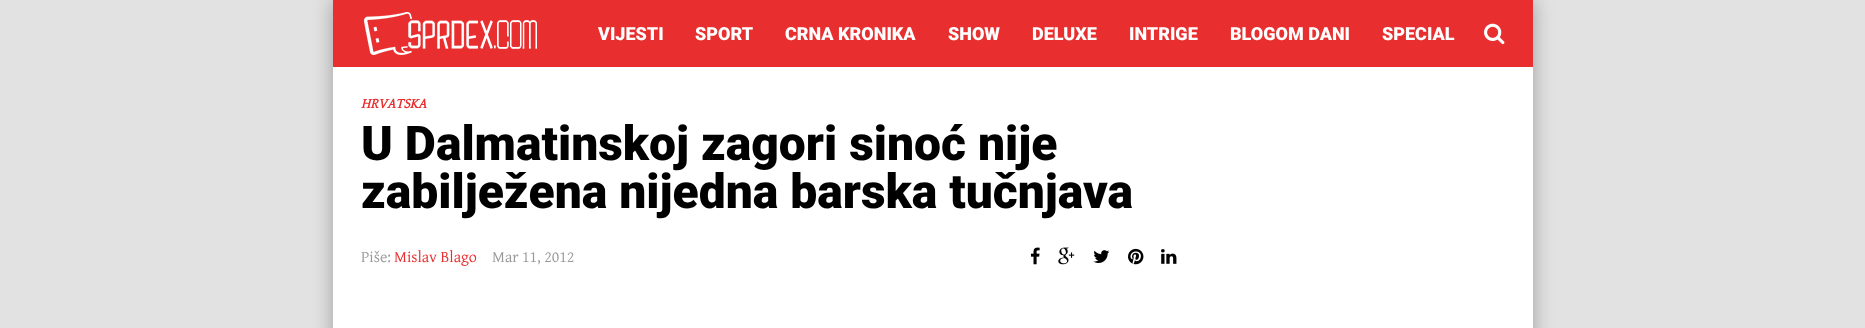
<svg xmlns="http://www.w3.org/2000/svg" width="1865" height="328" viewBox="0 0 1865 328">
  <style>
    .t1 { font: 900 18px Roboto; fill: #fff; }
    .t2 { font: italic bold 14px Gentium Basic; fill: #e82e2e; }
    .t3 { font: 900 48px Roboto; fill: #000; }
    .t4 { font: 16px Gentium Basic; fill: #999; }
    .t5 { font: 16px Gentium Basic; fill: #e82e2e; }
  </style>
  <rect width="100%" height="100%" fill="#e2e2e2"/>
  <rect x="333" y="0" width="1200" height="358" fill="#0000004d" filter="blur(10px)"/>
  <rect x="333" y="67" width="1200" height="261" fill="#fff"/>
  <rect x="333" y="0" width="1200" height="67" fill="#e82e2e"/>
  <image x="364" y="12" width="173" height="43" href="images/1.png"/>
  <text x="598" y="40" class="t1">VIJESTI</text>
  <text x="695" y="40" class="t1">SPORT</text>
  <text x="785" y="40" class="t1">CRNA KRONIKA</text>
  <text x="948" y="40" class="t1">SHOW</text>
  <text x="1032" y="40" class="t1">DELUXE</text>
  <text x="1129" y="40" class="t1">INTRIGE</text>
  <text x="1230" y="40" class="t1">BLOGOM DANI</text>
  <text x="1382" y="40" class="t1">SPECIAL</text>
  <image x="1484" y="23" width="21" height="22" href="images/2.png"/>
  <text x="361" y="108" class="t2">HRVATSKA</text>
  <text x="361" y="160" class="t3">U Dalmatinskoj zagori sinoć nije</text>
  <text x="361" y="208" class="t3">zabilježena nijedna barska tučnjava</text>
  <text x="361" y="262" class="t4">Piše:</text>
  <text x="394" y="262" class="t5">Mislav Blago</text>
  <text x="492" y="262" class="t4">Mar 11, 2012</text>
  <image x="1030" y="247" width="10" height="18" href="images/3.png"/>
  <image x="1058" y="247" width="17" height="18" href="images/4.png"/>
  <image x="1093" y="250" width="17" height="13" href="images/5.png"/>
  <image x="1128" y="248" width="16" height="17" href="images/6.png"/>
  <image x="1161" y="249" width="16" height="15" href="images/7.png"/>
</svg>
